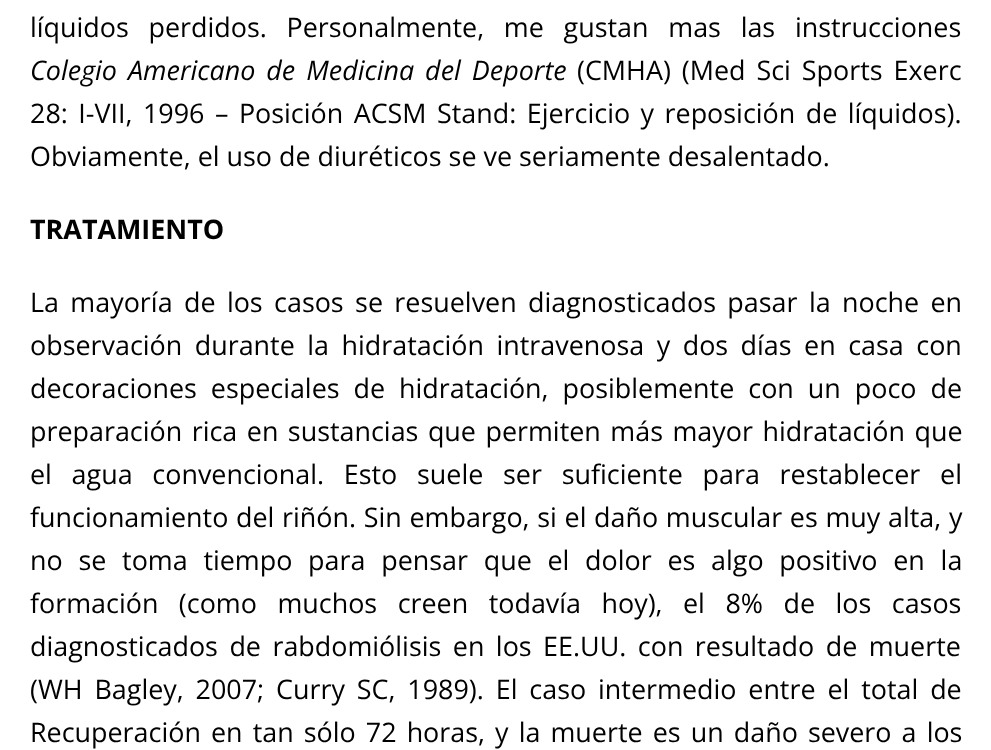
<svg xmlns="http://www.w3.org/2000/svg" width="991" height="750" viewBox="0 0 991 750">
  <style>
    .t1 { font: 26.9px Open Sans; fill: #000; }
    .t2 { font: italic 26.9px Open Sans; fill: #000; }
    .t3 { font: bold 26.9px Open Sans; fill: #000; }
  </style>
  <rect width="100%" height="100%" fill="#fff"/>
  <text x="30" y="37" word-spacing="12.75" class="t1">líquidos perdidos. Personalmente, me gustan mas las instrucciones</text>
  <text x="30" y="80" word-spacing="4" class="t2">Colegio Americano de Medicina del Deporte</text>
  <text x="577" y="80" word-spacing="4" class="t1">(CMHA) (Med Sci Sports Exerc</text>
  <text x="30" y="123" word-spacing="3.5" class="t1">28: I-VII, 1996 – Posición ACSM Stand: Ejercicio y reposición de líquidos).</text>
  <text x="30" y="166" class="t1">Obviamente, el uso de diuréticos se ve seriamente desalentado.</text>
  <text x="30" y="239" class="t3">TRATAMIENTO</text>
  <text x="30" y="312" word-spacing="4.4" class="t1">La mayoría de los casos se resuelven diagnosticados pasar la noche en</text>
  <text x="30" y="355" word-spacing="5.5" class="t1">observación durante la hidratación intravenosa y dos días en casa con</text>
  <text x="30" y="398" word-spacing="7" class="t1">decoraciones especiales de hidratación, posiblemente con un poco de</text>
  <text x="30" y="441" word-spacing="2.5" class="t1">preparación rica en sustancias que permiten más mayor hidratación que</text>
  <text x="30" y="484" word-spacing="12.75" class="t1">el agua convencional. Esto suele ser suficiente para restablecer el</text>
  <text x="30" y="527" word-spacing="0.7" class="t1">funcionamiento del riñón. Sin embargo, si el daño muscular es muy alta, y</text>
  <text x="30" y="570" word-spacing="8.75" class="t1">no se toma tiempo para pensar que el dolor es algo positivo en la</text>
  <text x="30" y="613" word-spacing="13.5" class="t1">formación (como muchos creen todavía hoy), el 8% de los casos</text>
  <text x="30" y="656" word-spacing="4.5" class="t1">diagnosticados de rabdomiólisis en los EE.UU. con resultado de muerte</text>
  <text x="30" y="699" word-spacing="4.9" class="t1">(WH Bagley, 2007; Curry SC, 1989). El caso intermedio entre el total de</text>
  <text x="30" y="742" word-spacing="3.1" class="t1">Recuperación en tan sólo 72 horas, y la muerte es un daño severo a los</text>
</svg>
